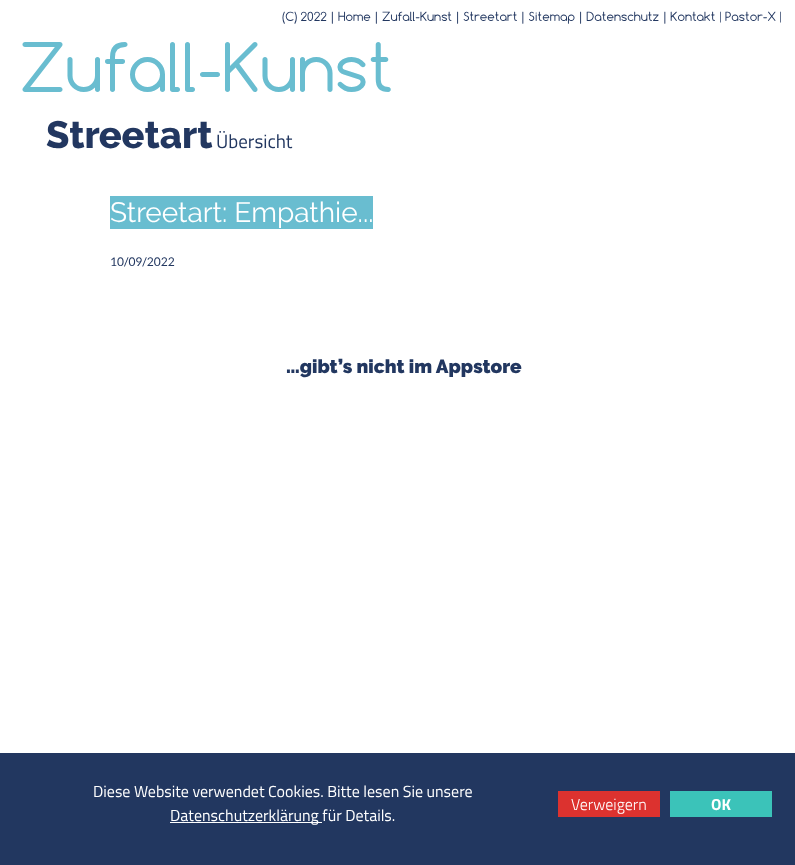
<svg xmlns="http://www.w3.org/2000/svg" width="795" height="865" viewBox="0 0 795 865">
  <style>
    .t1 { font: 12px Comfortaa; fill: #223760; }
    .t2 { font: 12px Raleway; fill: #223760; }
    .t3 { font: 64px Comfortaa; fill: #69bdd0; }
    .t4 { font: 800 38px Raleway; fill: #223760; }
    .t5 { font: 19px Titillium Web; fill: #223760; }
    .t6 { font: 28px Raleway; fill: #fff; }
    .t7 { font: 12px Lato; fill: #223760; }
    .t8 { font: 900 19px Raleway; fill: #223760; }
    .t9 { font: 16px Titillium Web; fill: #fff; }
    .t10 { font: 300 16px Titillium Web; fill: #fff; }
    .t11 { font: bold 16px Titillium Web; fill: #fff; }
  </style>
  <rect width="100%" height="100%" fill="#fff"/>
  <text x="282" y="21" class="t1">(C) 2022 | Home | Zufall-Kunst | Streetart | Sitemap | Datenschutz | Kontakt</text>
  <text x="719" y="21" class="t2">|</text>
  <text x="725" y="21" class="t1">Pastor-X</text>
  <text x="779" y="21" class="t2">|</text>
  <text x="20" y="92" class="t3">Zufall-Kunst</text>
  <text x="46" y="148" class="t4">Streetart</text>
  <text x="216" y="148" class="t5">Übersicht</text>
  <rect x="110" y="196" width="263" height="33" fill="#69bdd0"/>
  <text x="110" y="222" class="t6">Streetart: Empathie...</text>
  <text x="110" y="266" class="t7">10/09/2022</text>
  <text x="286" y="373" class="t8">…gibt’s nicht im Appstore</text>
  <rect x="0" y="753" width="795" height="112" fill="#223760"/>
  <text x="93" y="797" class="t9">Diese Website verwendet Cookies. Bitte lesen Sie unsere</text>
  <rect x="170" y="822" width="152" height="1" fill="#fff"/>
  <text x="170" y="821" class="t9">Datenschutzerklärung für Details.</text>
  <rect x="558" y="791" width="102" height="26" fill="#dc322f"/>
  <text x="571" y="810" class="t10">Verweigern</text>
  <rect x="670" y="791" width="102" height="26" fill="#3bc3b9"/>
  <text x="711" y="810" class="t11">OK</text>
</svg>
